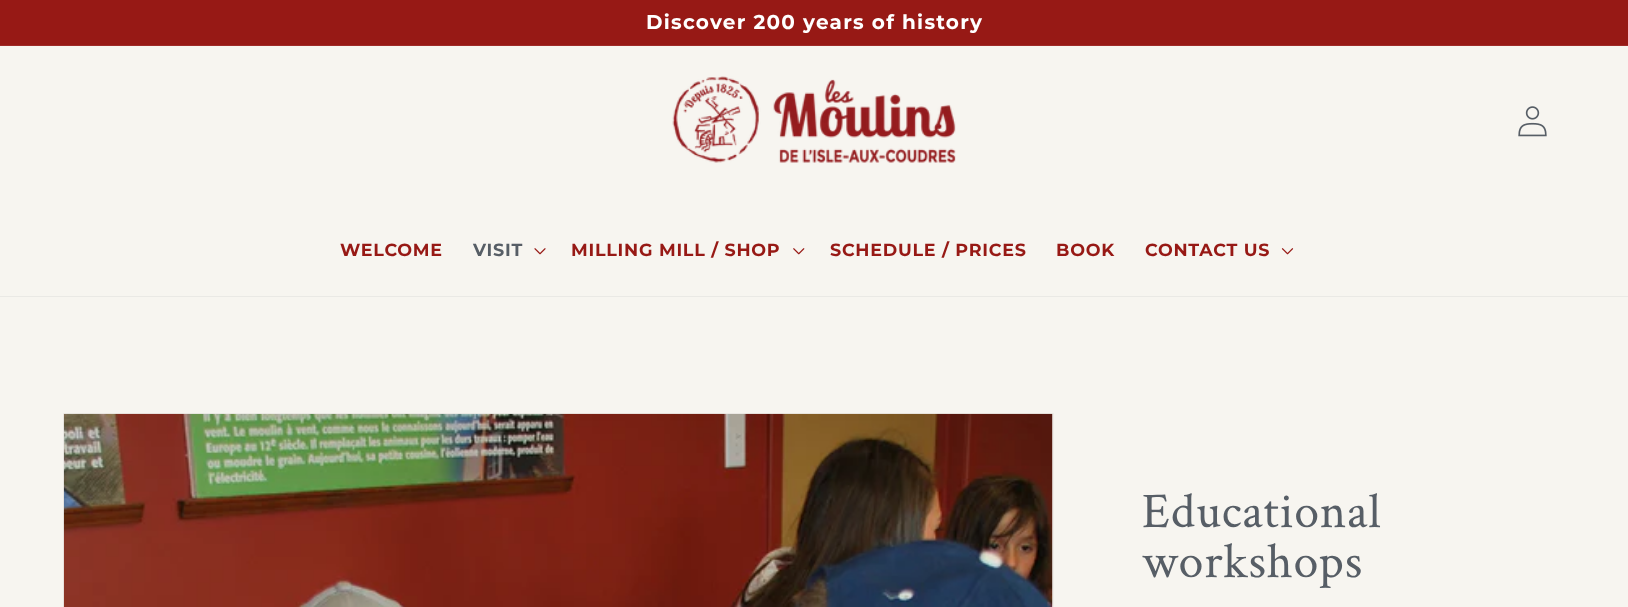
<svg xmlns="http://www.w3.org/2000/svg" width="1628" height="607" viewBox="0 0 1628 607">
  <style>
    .t1 { font: bold 20px Montserrat; letter-spacing: 1.25px; fill: #fff; }
    .t2 { font: bold 17.5px Montserrat; letter-spacing: 0.75px; fill: #971915; }
    .t3 { font: bold 17.5px Montserrat; letter-spacing: 0.75px; fill: #575e66; }
    .t4 { font: 50px Crimson Text; letter-spacing: 0.75px; fill: #575e66; }
  </style>
  <rect width="100%" height="100%" fill="#f7f5f0"/>
  <rect x="0" y="0" width="1628" height="45" fill="#971915"/>
  <rect x="0" y="45" width="1628" height="1" fill="#9f2b28"/>
  <text x="646" y="29" class="t1">Discover 200 years of history</text>
  <rect x="0" y="296" width="1628" height="1" fill="#eae9e5"/>
  <image x="672" y="76" width="284" height="87" href="images/1.png"/>
  <image x="1518" y="106" width="29" height="31" href="images/2.png"/>
  <text x="340" y="256" class="t2">WELCOME</text>
  <text x="473" y="256" class="t3">VISIT</text>
  <image x="534" y="248" width="12" height="7" href="images/3.png"/>
  <text x="571" y="256" class="t2">MILLING MILL / SHOP</text>
  <image x="793" y="248" width="12" height="7" href="images/4.png"/>
  <text x="830" y="256" class="t2">SCHEDULE / PRICES</text>
  <text x="1056" y="256" class="t2">BOOK</text>
  <text x="1145" y="256" class="t2">CONTACT US</text>
  <image x="1281" y="248" width="13" height="7" href="images/5.png"/>
  <rect x="63.5" y="413.5" width="990" height="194" fill="none" stroke="#efede9"/>
  <image x="63" y="413" width="990" height="194" href="images/6.png"/>
  <text x="1142" y="527" class="t4">Educational</text>
  <text x="1142" y="577" class="t4">workshops</text>
</svg>
